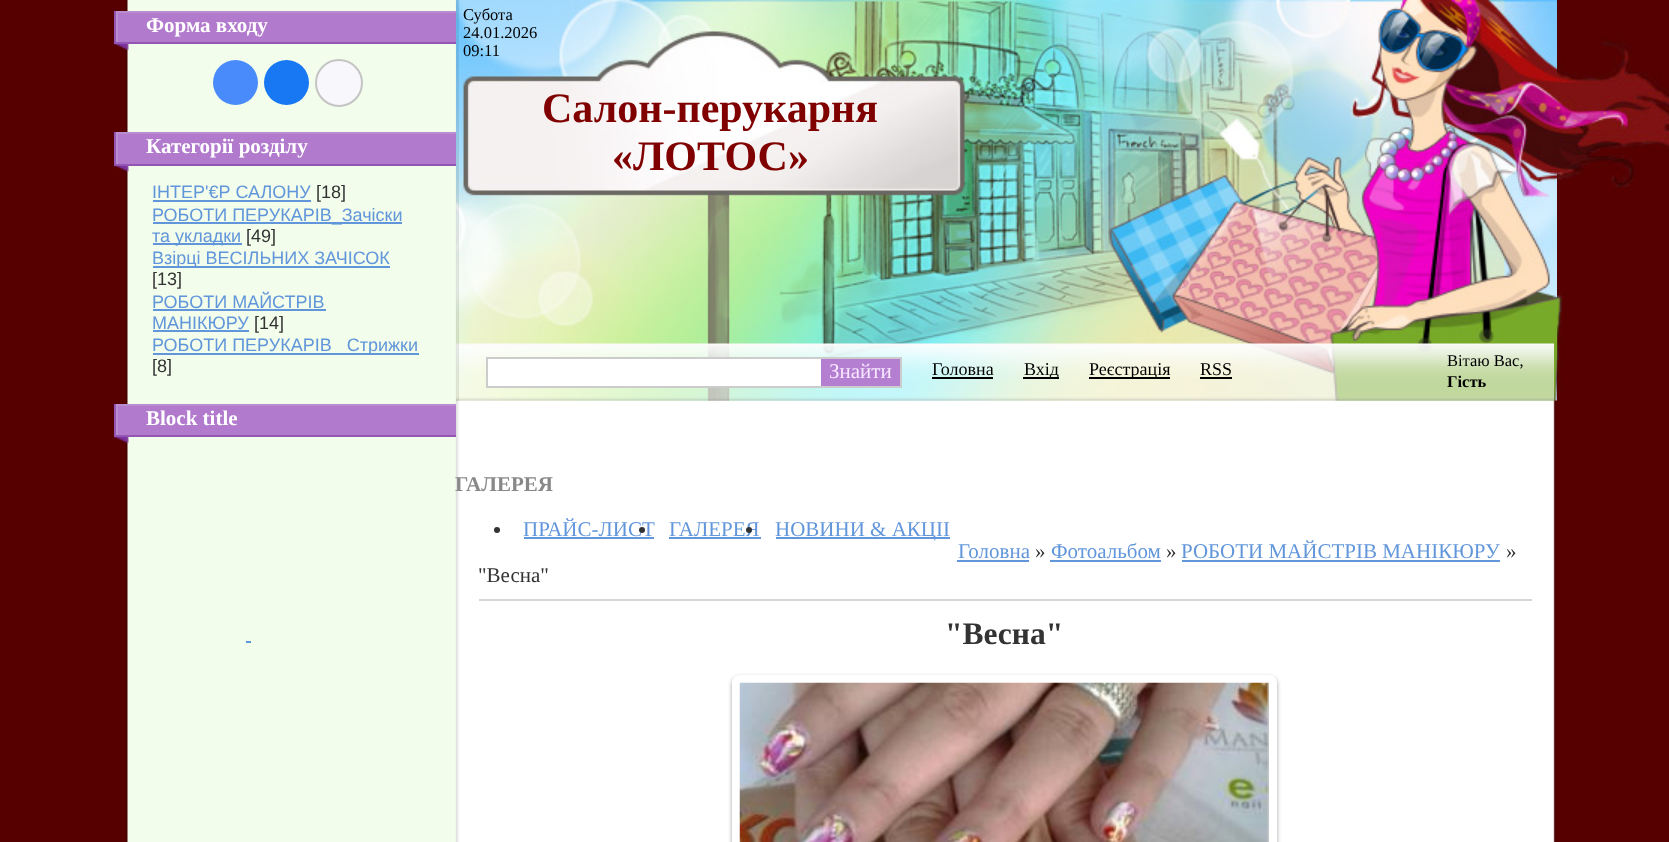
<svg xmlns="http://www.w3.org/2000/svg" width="1669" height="842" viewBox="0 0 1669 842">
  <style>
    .t1 { font: bold 21px Liberation Serif; fill: #fff; }
    .t2 { font: 18px Liberation Sans; fill: #6196da; }
    .t3 { font: 18px Liberation Sans; fill: #333; }
    .t4 { font: 16.5px Liberation Serif; fill: #000; }
    .t5 { font: bold 42px Liberation Serif; fill: #800000; }
    .t6 { font: 21px Liberation Serif; fill: #f7e8ff; }
    .t7 { font: 18px Liberation Serif; fill: #000; }
    .t8 { font: bold 16.5px Liberation Serif; fill: #000; }
    .t9 { font: bold 21px Liberation Serif; fill: #888; }
    .t10 { font: 21px Liberation Serif; fill: #6196da; }
    .t11 { font: 21px Liberation Serif; fill: #333; }
    .t12 { font: bold 31.5px Liberation Serif; fill: #333; }
  </style>
  <defs>
    <clipPath id="clip1"><path d="M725 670H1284V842H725ZM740 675H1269C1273.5 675 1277 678.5 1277 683V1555C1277 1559.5 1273.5 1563 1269 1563H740C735.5 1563 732 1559.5 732 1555V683C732 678.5 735.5 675 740 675Z" clip-rule="evenodd"/></clipPath>
  </defs>
  <rect width="100%" height="100%" fill="#560000"/>
  <image x="1553" y="0" width="116" height="401" href="images/1.png"/>
  <image x="125" y="0" width="1432" height="842" href="images/2.png"/>
  <image x="114" y="44" width="15" height="7" href="images/3.png"/>
  <rect x="114" y="42" width="342" height="2" fill="#9456b3"/>
  <rect x="114" y="11" width="2" height="33" fill="#9456b3"/>
  <rect x="118" y="13" width="338" height="29" fill="#b17acd"/>
  <rect x="116" y="11" width="340" height="2" fill="#b98dd0"/>
  <rect x="116" y="11" width="2" height="31" fill="#b98dd0"/>
  <text x="146" y="32" class="t1">Форма входу</text>
  <circle cx="235.5" cy="82.5" r="22.5" fill="#498bfa"/>
  <circle cx="286.5" cy="82.5" r="22.5" fill="#1877f2"/>
  <circle cx="339" cy="83" r="23" fill="#f8f8fc" stroke="#c4c4c4" stroke-width="2"/>
  <image x="114" y="166" width="15" height="7" href="images/4.png"/>
  <rect x="114" y="164" width="342" height="2" fill="#9456b3"/>
  <rect x="114" y="132" width="2" height="33" fill="#9456b3"/>
  <rect x="118" y="134" width="338" height="30" fill="#b17acd"/>
  <rect x="116" y="132" width="340" height="2" fill="#b98dd0"/>
  <rect x="116" y="132" width="2" height="32" fill="#b98dd0"/>
  <text x="146" y="153" class="t1">Категорії розділу</text>
  <text x="152" y="198" class="t2">IНТЕР'€Р САЛОНУ</text>
  <rect x="153" y="200" width="158" height="2" fill="#6196da"/>
  <text x="316" y="198" class="t3">[18]</text>
  <rect x="153" y="222" width="249" height="2" fill="#6196da"/>
  <text x="152" y="221" class="t2">РОБОТИ ПЕРУКАРІВ_Зачіски</text>
  <rect x="153" y="243" width="89" height="2" fill="#6196da"/>
  <text x="152" y="242" class="t2">та укладки</text>
  <text x="246" y="242" class="t3">[49]</text>
  <rect x="153" y="266" width="237" height="2" fill="#6196da"/>
  <text x="152" y="264" class="t2">Взірці ВЕСІЛЬНИХ ЗАЧІСОК</text>
  <text x="152" y="285" class="t3">[13]</text>
  <text x="152" y="308" class="t2">РОБОТИ МАЙСТРІВ</text>
  <rect x="153" y="309" width="173" height="2" fill="#6196da"/>
  <text x="152" y="329" class="t2">МАНІКЮРУ</text>
  <rect x="153" y="330" width="96" height="2" fill="#6196da"/>
  <text x="254" y="329" class="t3">[14]</text>
  <rect x="153" y="353" width="266" height="2" fill="#6196da"/>
  <text x="152" y="351" class="t2">РОБОТИ ПЕРУКАРІВ_ Стрижки</text>
  <text x="152" y="372" class="t3">[8]</text>
  <image x="114" y="437" width="15" height="7" href="images/3.png"/>
  <rect x="114" y="435" width="342" height="2" fill="#9456b3"/>
  <rect x="114" y="404" width="2" height="33" fill="#9456b3"/>
  <rect x="118" y="406" width="338" height="29" fill="#b17acd"/>
  <rect x="116" y="404" width="340" height="2" fill="#b98dd0"/>
  <rect x="116" y="404" width="2" height="31" fill="#b98dd0"/>
  <text x="146" y="425" class="t1">Block title</text>
  <rect x="246" y="641" width="5" height="2" fill="#6196da"/>
  <image x="456" y="0" width="1101" height="401" href="images/5.png"/>
  <image x="456" y="343" width="1098" height="58" href="images/6.png"/>
  <rect x="456" y="0" width="3" height="401" fill="#00000017"/>
  <text x="463" y="20" class="t4">Субота</text>
  <text x="463" y="38" class="t4">24.01.2026</text>
  <text x="463" y="56" class="t4">09:11</text>
  <text x="542" y="122" class="t5">Салон-перукарня</text>
  <text x="612" y="170" class="t5">«ЛОТОС»</text>
  <rect x="488" y="359" width="333" height="27" fill="#fff"/>
  <rect x="486" y="357" width="416" height="2" fill="#ccc"/>
  <rect x="486" y="386" width="335" height="2" fill="#ccc"/>
  <rect x="486" y="357" width="2" height="30" fill="#ccc"/>
  <rect x="821" y="359" width="79" height="27" fill="#b57fd1"/>
  <rect x="900" y="357" width="2" height="30" fill="#ccc"/>
  <rect x="821" y="386" width="81" height="2" fill="#ccc"/>
  <text x="829" y="378" class="t6">Знайти</text>
  <text x="932" y="375" class="t7">Головна</text>
  <rect x="932" y="377" width="61" height="2" fill="#000"/>
  <rect x="1023" y="377" width="36" height="2" fill="#000"/>
  <text x="1024" y="375" class="t7">Вхід</text>
  <rect x="1089" y="377" width="81" height="2" fill="#000"/>
  <text x="1089" y="375" class="t7">Реєстрація</text>
  <text x="1200" y="375" class="t7">RSS</text>
  <rect x="1200" y="377" width="32" height="2" fill="#000"/>
  <text x="1447" y="366" class="t4">Вітаю Вас,</text>
  <text x="1447" y="387" class="t8">Гість</text>
  <text x="455" y="491" class="t9">ГАЛЕРЕЯ</text>
  <circle cx="497" cy="530" r="3" fill="#333"/>
  <text x="523" y="536" class="t10">ПРАЙС-ЛИСТ</text>
  <rect x="524" y="537" width="130" height="2" fill="#6196da"/>
  <circle cx="642" cy="530" r="3" fill="#333"/>
  <text x="669" y="536" class="t10">ГАЛЕРЕЯ</text>
  <rect x="669" y="537" width="92" height="2" fill="#6196da"/>
  <circle cx="749" cy="530" r="3" fill="#333"/>
  <rect x="776" y="537" width="174" height="2" fill="#6196da"/>
  <text x="775" y="536" class="t10">НОВИНИ &amp; АКЦII</text>
  <text x="958" y="558" class="t10">Головна</text>
  <rect x="957" y="560" width="72" height="2" fill="#6196da"/>
  <text x="1035" y="558" class="t11">»</text>
  <text x="1051" y="558" class="t10">Фотоальбом</text>
  <rect x="1050" y="560" width="111" height="2" fill="#6196da"/>
  <text x="1166" y="558" class="t11">»</text>
  <text x="1181" y="558" class="t10">РОБОТИ МАЙСТРІВ МАНІКЮРУ</text>
  <rect x="1182" y="560" width="318" height="2" fill="#6196da"/>
  <text x="1506" y="558" class="t11">»</text>
  <text x="478" y="582" class="t11">"Весна"</text>
  <rect x="479" y="599" width="1053" height="2" fill="#d6d6d6"/>
  <text x="945" y="644" class="t12">"Весна"</text>
  <g clip-path="url(#clip1)">
    <rect x="732" y="677" width="545" height="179" rx="8" fill="#0000005e" filter="blur(2px)"/>
  </g>
  <image x="739" y="682" width="530" height="160" href="images/7.png"/>
</svg>
